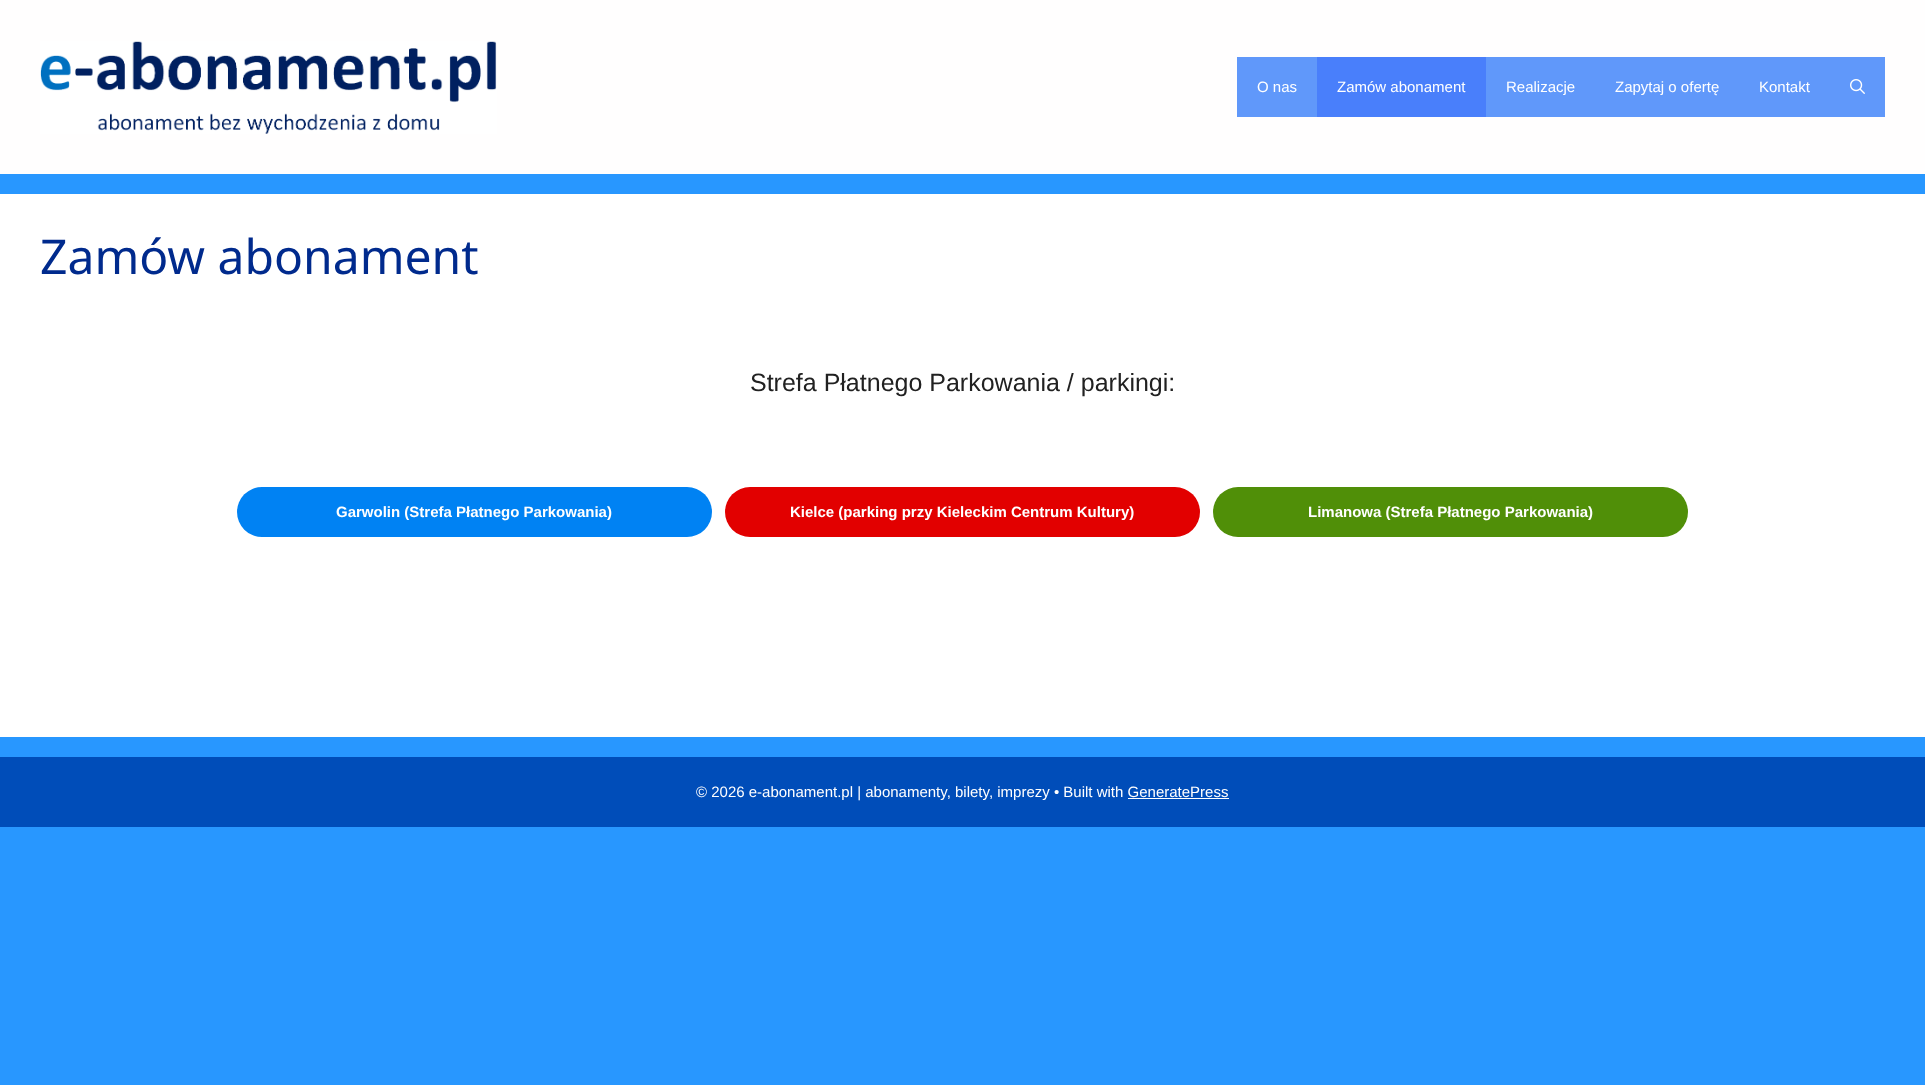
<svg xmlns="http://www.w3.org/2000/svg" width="1925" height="1085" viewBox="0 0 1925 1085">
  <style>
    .t1 { font: 15px Liberation Sans; fill: #fff; }
    .t2 { font: 48px Noto Sans; fill: #002a8d; }
    .t3 { font: 25px Liberation Sans; fill: #212121; }
    .t4 { font: bold 15px Liberation Sans; fill: #fff; }
  </style>
  <rect width="100%" height="100%" fill="#2897ff"/>
  <rect x="0" y="0" width="1925" height="174" fill="#fffefe"/>
  <image x="40" y="41" width="457" height="93" href="images/1.png"/>
  <rect x="1237" y="57" width="648" height="60" fill="#6098fa"/>
  <text x="1257" y="92" class="t1">O nas</text>
  <rect x="1317" y="57" width="169" height="60" fill="#497ffb"/>
  <text x="1337" y="92" class="t1">Zamów abonament</text>
  <text x="1506" y="92" class="t1">Realizacje</text>
  <text x="1615" y="92" class="t1">Zapytaj o ofertę</text>
  <text x="1759" y="92" class="t1">Kontakt</text>
  <image x="1850" y="79" width="15" height="15" href="images/2.png"/>
  <rect x="0" y="194" width="1925" height="543" fill="#fff"/>
  <text x="40" y="274" class="t2">Zamów abonament</text>
  <text x="750" y="391" class="t3">Strefa Płatnego Parkowania / parkingi:</text>
  <rect x="237" y="487" width="475" height="50" rx="25" fill="#0082f3"/>
  <text x="336" y="517" class="t4">Garwolin (Strefa Płatnego Parkowania)</text>
  <rect x="725" y="487" width="475" height="50" rx="25" fill="#e20000"/>
  <text x="790" y="517" class="t4">Kielce (parking przy Kieleckim Centrum Kultury)</text>
  <rect x="1213" y="487" width="475" height="50" rx="25" fill="#508f08"/>
  <text x="1308" y="517" class="t4">Limanowa (Strefa Płatnego Parkowania)</text>
  <rect x="0" y="757" width="1925" height="70" fill="#004db9"/>
  <text x="696" y="797" class="t1">© 2026 e-abonament.pl | abonamenty, bilety, imprezy • Built with GeneratePress</text>
  <rect x="1128" y="798" width="101" height="1" fill="#fff"/>
</svg>
